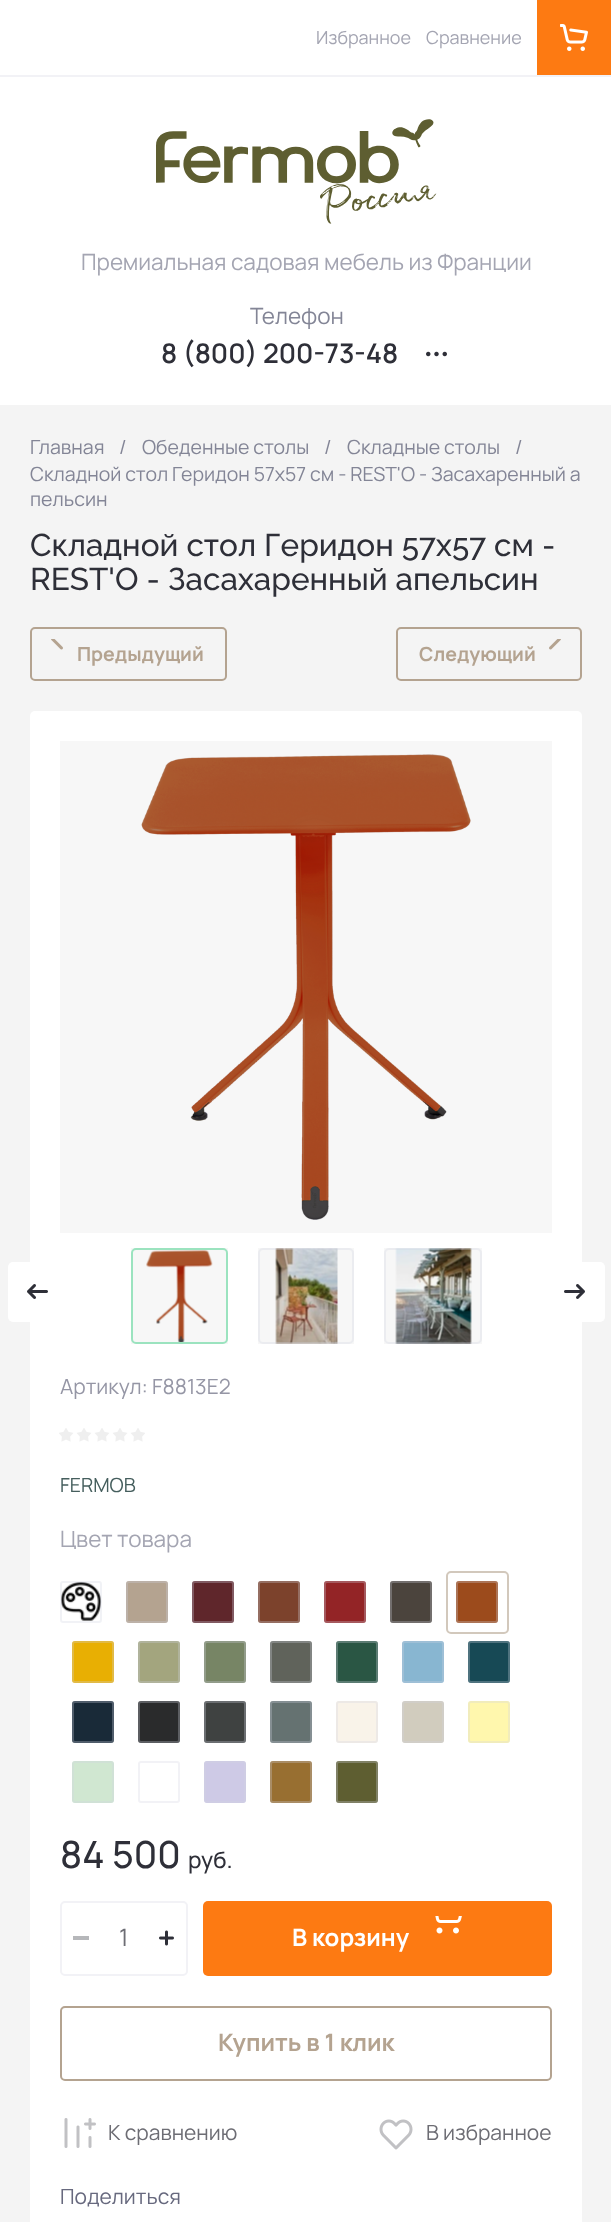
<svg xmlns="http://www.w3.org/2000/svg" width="611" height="2222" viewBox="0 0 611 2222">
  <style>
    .t1 { font: 18px Manrope; fill: #a4a5b2; }
    .t2 { font: 22.5px Manrope; fill: #a4a5b2; }
    .t3 { font: 22.5px Manrope; fill: #838596; }
    .t4 { font: 600 27px Manrope; fill: #2e2f38; }
    .t5 { font: 19.5px Manrope; fill: #838596; }
    .t6 { font: 500 31.5px Raleway; fill: #2e2f38; }
    .t7 { font: bold 19.5px Manrope; fill: #b4a390; }
    .t8 { font: 21px Manrope; fill: #9596a5; }
    .t9 { font: 19.5px Manrope; fill: #455e5d; }
    .t10 { font: 500 37.5px Manrope; fill: #2e2f38; }
    .t11 { font: 500 22.5px Manrope; fill: #2e2f38; }
    .t12 { font: 24px Manrope; fill: #6d6d74; }
    .t13 { font: bold 24px Manrope; fill: #fff; }
    .t14 { font: bold 24px Manrope; fill: #b4a390; }
    .t15 { font: 21px Manrope; fill: #6d6d74; }
    .t16 { font: 21px Manrope; fill: #67697e; }
  </style>
  <rect width="100%" height="100%" fill="#fff"/>
  <text x="316" y="44" class="t1">Избранное</text>
  <text x="426" y="44" class="t1">Сравнение</text>
  <rect x="537" y="0" width="74" height="75" fill="#fd7a12"/>
  <image x="560" y="24" width="28" height="27" href="images/1.png"/>
  <rect x="0" y="75" width="611" height="2" fill="#f2f2f6"/>
  <image x="156" y="119" width="281" height="105" href="images/2.png"/>
  <text x="81" y="270" class="t2">Премиальная садовая мебель из Франции</text>
  <text x="250" y="324" class="t3">Телефон</text>
  <text x="161" y="363" class="t4">8 (800) 200-73-48</text>
  <image x="426" y="351" width="21" height="6" href="images/3.png"/>
  <rect x="0" y="405" width="611" height="1817" fill="#f4f4f4"/>
  <text x="30" y="454" class="t5">Главная</text>
  <text x="119" y="454" class="t5">/</text>
  <text x="142" y="454" class="t5">Обеденные столы</text>
  <text x="324" y="454" class="t5">/</text>
  <text x="347" y="454" class="t5">Складные столы</text>
  <text x="515" y="454" class="t5">/</text>
  <text x="30" y="481" class="t5">Складной стол Геридон 57х57 см - REST'O - Засахаренный а</text>
  <text x="30" y="506" class="t5">пельсин</text>
  <text x="30" y="556" class="t6">Складной стол Геридон 57х57 см -</text>
  <text x="30" y="590" class="t6">REST'O - Засахаренный апельсин</text>
  <rect x="31" y="628" width="195" height="52" rx="4" fill="none" stroke="#b4a390" stroke-width="2"/>
  <image x="51" y="639" width="12" height="11" href="images/4.png"/>
  <text x="77" y="661" class="t7">Предыдущий</text>
  <rect x="397" y="628" width="184" height="52" rx="4" fill="none" stroke="#b4a390" stroke-width="2"/>
  <image x="549" y="639" width="12" height="11" href="images/5.png"/>
  <text x="419" y="661" class="t7">Следующий</text>
  <rect x="30" y="711" width="552" height="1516" rx="5" fill="#fff"/>
  <image x="141" y="754" width="330" height="466" href="images/6.png"/>
  <rect x="60" y="741" width="492" height="492" fill="#00000008"/>
  <rect x="8" y="1262" width="60" height="60" rx="5" fill="#fff"/>
  <image x="27" y="1284" width="21" height="15" href="images/7.png"/>
  <rect x="545" y="1262" width="60" height="60" rx="5" fill="#fff"/>
  <image x="564" y="1284" width="21" height="15" href="images/8.png"/>
  <image x="146" y="1250" width="67" height="92" href="images/9.png"/>
  <rect x="131" y="1248" width="97" height="96" fill="#00000008"/>
  <rect x="132" y="1249" width="95" height="94" rx="4" fill="none" stroke="#9be3bf" stroke-width="2"/>
  <image x="275" y="1248" width="63" height="96" href="images/10.png"/>
  <rect x="258" y="1248" width="96" height="96" fill="#00000008"/>
  <rect x="259" y="1249" width="94" height="94" rx="4" fill="none" stroke="#d2d3e04d" stroke-width="2"/>
  <image x="395" y="1248" width="77" height="96" href="images/11.png"/>
  <rect x="384" y="1248" width="98" height="96" fill="#00000008"/>
  <rect x="385" y="1249" width="96" height="94" rx="4" fill="none" stroke="#d2d3e04d" stroke-width="2"/>
  <text x="60" y="1394" class="t8">Артикул: F8813E2</text>
  <image x="59" y="1428" width="86" height="14" href="images/12.png"/>
  <text x="60" y="1492" class="t9">FERMOB</text>
  <text x="60" y="1547" class="t2">Цвет товара</text>
  <image x="60" y="1581" width="42" height="40" href="images/13.png"/>
  <rect x="61" y="1582" width="40" height="40" rx="2" fill="none" stroke="#d2d3e04d" stroke-width="2"/>
  <rect x="126" y="1581" width="42" height="42" rx="3" fill="#b4a390"/>
  <rect x="127" y="1582" width="40" height="40" rx="2" fill="none" stroke="#d2d3e04d" stroke-width="2"/>
  <rect x="192" y="1581" width="42" height="42" rx="3" fill="#5f262b"/>
  <rect x="193" y="1582" width="40" height="40" rx="2" fill="none" stroke="#d2d3e04d" stroke-width="2"/>
  <rect x="258" y="1581" width="42" height="42" rx="3" fill="#7c422c"/>
  <rect x="259" y="1582" width="40" height="40" rx="2" fill="none" stroke="#d2d3e04d" stroke-width="2"/>
  <rect x="324" y="1581" width="42" height="42" rx="3" fill="#932426"/>
  <rect x="325" y="1582" width="40" height="40" rx="2" fill="none" stroke="#d2d3e04d" stroke-width="2"/>
  <rect x="390" y="1581" width="42" height="42" rx="3" fill="#4b443d"/>
  <rect x="391" y="1582" width="40" height="40" rx="2" fill="none" stroke="#d2d3e04d" stroke-width="2"/>
  <rect x="456" y="1581" width="42" height="42" rx="3" fill="#9c4b1c"/>
  <rect x="457" y="1582" width="40" height="40" rx="2" fill="none" stroke="#d2d3e04d" stroke-width="2"/>
  <rect x="447" y="1572" width="61" height="61" rx="4" fill="none" stroke="#d2c8bc" stroke-width="2"/>
  <rect x="72" y="1641" width="42" height="42" rx="3" fill="#e8af03"/>
  <rect x="73" y="1642" width="40" height="40" rx="2" fill="none" stroke="#d2d3e04d" stroke-width="2"/>
  <rect x="138" y="1641" width="42" height="42" rx="3" fill="#a3a57e"/>
  <rect x="139" y="1642" width="40" height="40" rx="2" fill="none" stroke="#d2d3e04d" stroke-width="2"/>
  <rect x="204" y="1641" width="42" height="42" rx="3" fill="#778565"/>
  <rect x="205" y="1642" width="40" height="40" rx="2" fill="none" stroke="#d2d3e04d" stroke-width="2"/>
  <rect x="270" y="1641" width="42" height="42" rx="3" fill="#60635b"/>
  <rect x="271" y="1642" width="40" height="40" rx="2" fill="none" stroke="#d2d3e04d" stroke-width="2"/>
  <rect x="336" y="1641" width="42" height="42" rx="3" fill="#2a5644"/>
  <rect x="337" y="1642" width="40" height="40" rx="2" fill="none" stroke="#d2d3e04d" stroke-width="2"/>
  <rect x="402" y="1641" width="42" height="42" rx="3" fill="#88b6d1"/>
  <rect x="403" y="1642" width="40" height="40" rx="2" fill="none" stroke="#d2d3e04d" stroke-width="2"/>
  <rect x="468" y="1641" width="42" height="42" rx="3" fill="#174955"/>
  <rect x="469" y="1642" width="40" height="40" rx="2" fill="none" stroke="#d2d3e04d" stroke-width="2"/>
  <rect x="72" y="1701" width="42" height="42" rx="3" fill="#192a38"/>
  <rect x="73" y="1702" width="40" height="40" rx="2" fill="none" stroke="#d2d3e04d" stroke-width="2"/>
  <rect x="138" y="1701" width="42" height="42" rx="3" fill="#2a2b2c"/>
  <rect x="139" y="1702" width="40" height="40" rx="2" fill="none" stroke="#d2d3e04d" stroke-width="2"/>
  <rect x="204" y="1701" width="42" height="42" rx="3" fill="#3f4241"/>
  <rect x="205" y="1702" width="40" height="40" rx="2" fill="none" stroke="#d2d3e04d" stroke-width="2"/>
  <rect x="270" y="1701" width="42" height="42" rx="3" fill="#657271"/>
  <rect x="271" y="1702" width="40" height="40" rx="2" fill="none" stroke="#d2d3e04d" stroke-width="2"/>
  <rect x="336" y="1701" width="42" height="42" rx="3" fill="#f9f3e9"/>
  <rect x="337" y="1702" width="40" height="40" rx="2" fill="none" stroke="#d2d3e04d" stroke-width="2"/>
  <rect x="402" y="1701" width="42" height="42" rx="3" fill="#d1ccbe"/>
  <rect x="403" y="1702" width="40" height="40" rx="2" fill="none" stroke="#d2d3e04d" stroke-width="2"/>
  <rect x="468" y="1701" width="42" height="42" rx="3" fill="#fff7ad"/>
  <rect x="469" y="1702" width="40" height="40" rx="2" fill="none" stroke="#d2d3e04d" stroke-width="2"/>
  <rect x="72" y="1761" width="42" height="42" rx="3" fill="#d0e7d1"/>
  <rect x="73" y="1762" width="40" height="40" rx="2" fill="none" stroke="#d2d3e04d" stroke-width="2"/>
  <rect x="139" y="1762" width="40" height="40" rx="2" fill="none" stroke="#f2f2f6" stroke-width="2"/>
  <rect x="204" y="1761" width="42" height="42" rx="3" fill="#cecae6"/>
  <rect x="205" y="1762" width="40" height="40" rx="2" fill="none" stroke="#d2d3e04d" stroke-width="2"/>
  <rect x="270" y="1761" width="42" height="42" rx="3" fill="#986f31"/>
  <rect x="271" y="1762" width="40" height="40" rx="2" fill="none" stroke="#d2d3e04d" stroke-width="2"/>
  <rect x="336" y="1761" width="42" height="42" rx="3" fill="#5e5e31"/>
  <rect x="337" y="1762" width="40" height="40" rx="2" fill="none" stroke="#d2d3e04d" stroke-width="2"/>
  <text x="60" y="1868" class="t10">84 500</text>
  <text x="188" y="1868" class="t11">руб.</text>
  <rect x="61" y="1902" width="126" height="73" rx="4" fill="none" stroke="#f2f2f6" stroke-width="2"/>
  <rect x="73" y="1936" width="16" height="4" fill="#b6b7ba"/>
  <text x="119" y="1946" class="t12">1</text>
  <image x="159" y="1930" width="15" height="16" href="images/14.png"/>
  <rect x="203" y="1901" width="349" height="75" rx="5" fill="#fd7a12"/>
  <image x="435" y="1916" width="27" height="18" href="images/15.png"/>
  <text x="292" y="1946" class="t13">В корзину</text>
  <rect x="61" y="2007" width="490" height="73" rx="4" fill="none" stroke="#b4a390" stroke-width="2"/>
  <text x="218" y="2051" class="t14">Купить в 1 клик</text>
  <image x="64" y="2118" width="32" height="30" href="images/16.png"/>
  <text x="108" y="2140" class="t15">К сравнению</text>
  <image x="379" y="2119" width="34" height="31" href="images/17.png"/>
  <text x="426" y="2140" class="t15">В избранное</text>
  <text x="60" y="2204" class="t16">Поделиться</text>
</svg>
